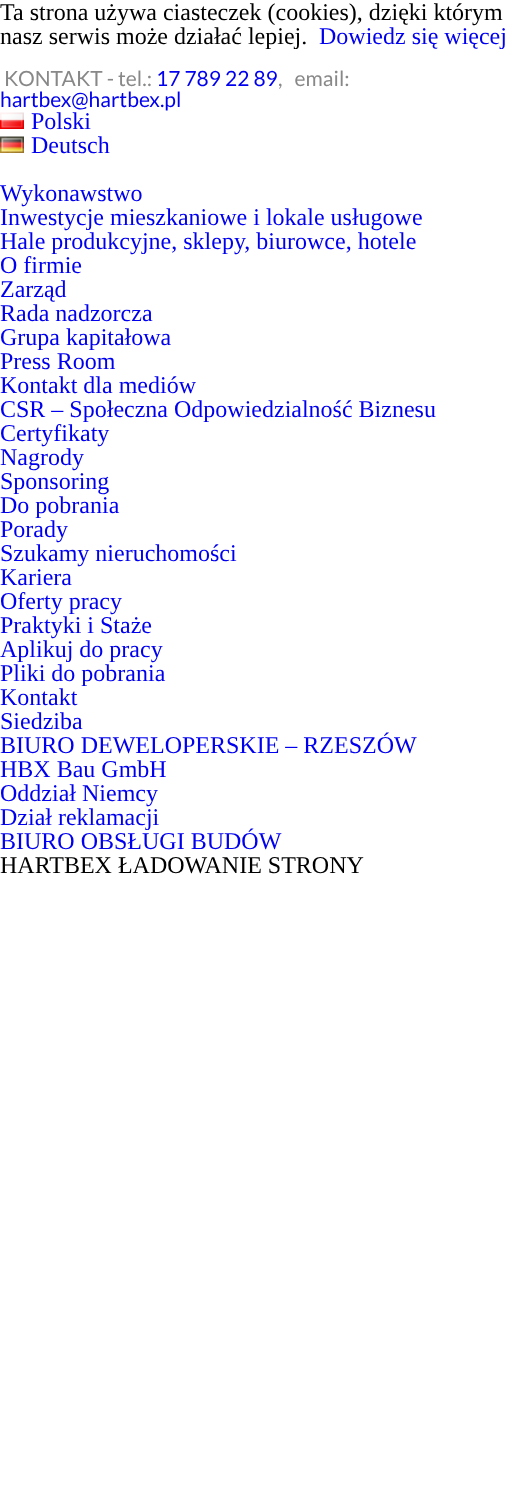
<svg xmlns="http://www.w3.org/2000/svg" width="532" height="1499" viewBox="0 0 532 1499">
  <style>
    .t1 { font: 24px Liberation Serif; fill: #000; }
    .t2 { font: 24px Liberation Serif; fill: #00e; }
    .t3 { font: 21px Lato; fill: #888; }
    .t4 { font: 21px Lato; fill: #00e; }
  </style>
  <rect width="100%" height="100%" fill="#fff"/>
  <text x="0" y="20" class="t1">Ta strona używa ciasteczek (cookies), dzięki którym</text>
  <text x="0" y="44" class="t1">nasz serwis może działać lepiej.</text>
  <text x="319" y="44" class="t2">Dowiedz się więcej</text>
  <text x="4" y="86" class="t3">KONTAKT - tel.:</text>
  <text x="156" y="86" class="t4">17 789 22 89</text>
  <text x="278" y="86" class="t3" xml:space="preserve">,   email:</text>
  <text x="0" y="107" class="t4">hartbex@hartbex.pl</text>
  <image x="0" y="112" width="24" height="17" href="images/1.png"/>
  <text x="31" y="129" class="t2">Polski</text>
  <image x="0" y="136" width="24" height="17" href="images/2.png"/>
  <text x="31" y="153" class="t2">Deutsch</text>
  <text x="0" y="201" class="t2">Wykonawstwo</text>
  <text x="0" y="225" class="t2">Inwestycje mieszkaniowe i lokale usługowe</text>
  <text x="0" y="249" class="t2">Hale produkcyjne, sklepy, biurowce, hotele</text>
  <text x="0" y="273" class="t2">O firmie</text>
  <text x="0" y="297" class="t2">Zarząd</text>
  <text x="0" y="321" class="t2">Rada nadzorcza</text>
  <text x="0" y="345" class="t2">Grupa kapitałowa</text>
  <text x="0" y="369" class="t2">Press Room</text>
  <text x="0" y="393" class="t2">Kontakt dla mediów</text>
  <text x="0" y="417" class="t2">CSR – Społeczna Odpowiedzialność Biznesu</text>
  <text x="0" y="441" class="t2">Certyfikaty</text>
  <text x="0" y="465" class="t2">Nagrody</text>
  <text x="0" y="489" class="t2">Sponsoring</text>
  <text x="0" y="513" class="t2">Do pobrania</text>
  <text x="0" y="537" class="t2">Porady</text>
  <text x="0" y="561" class="t2">Szukamy nieruchomości</text>
  <text x="0" y="585" class="t2">Kariera</text>
  <text x="0" y="609" class="t2">Oferty pracy</text>
  <text x="0" y="633" class="t2">Praktyki i Staże</text>
  <text x="0" y="657" class="t2">Aplikuj do pracy</text>
  <text x="0" y="681" class="t2">Pliki do pobrania</text>
  <text x="0" y="705" class="t2">Kontakt</text>
  <text x="0" y="729" class="t2">Siedziba</text>
  <text x="0" y="753" class="t2">BIURO DEWELOPERSKIE – RZESZÓW</text>
  <text x="0" y="777" class="t2">HBX Bau GmbH</text>
  <text x="0" y="801" class="t2">Oddział Niemcy</text>
  <text x="0" y="825" class="t2">Dział reklamacji</text>
  <text x="0" y="849" class="t2">BIURO OBSŁUGI BUDÓW</text>
  <text x="0" y="873" class="t1">HARTBEX ŁADOWANIE STRONY</text>
</svg>
